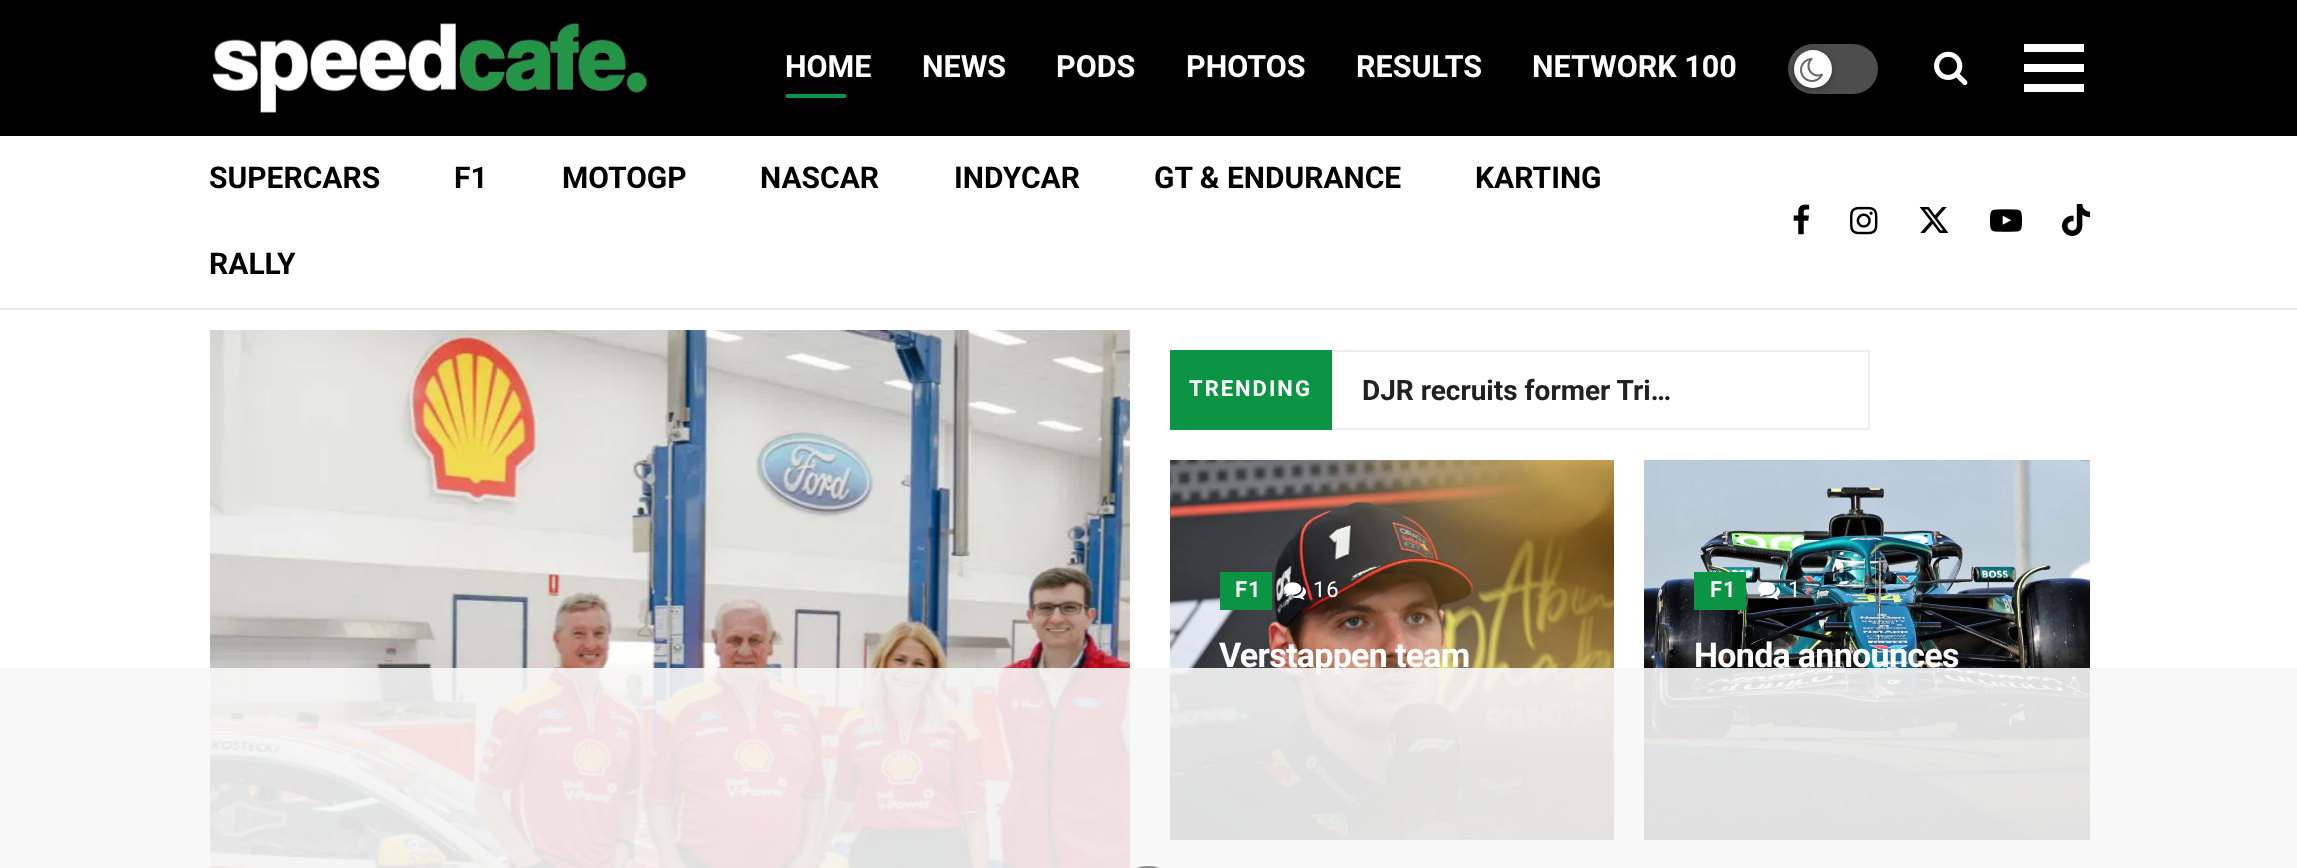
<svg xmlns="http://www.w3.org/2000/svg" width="2297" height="868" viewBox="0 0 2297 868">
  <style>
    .t1 { font: bold 30.5px Roboto; fill: #fff; }
    .t2 { font: bold 30px Roboto; fill: #000; }
    .t3 { font: bold 22px Roboto; letter-spacing: 2px; fill: #fff; }
    .t4 { font: bold 28px Roboto; fill: #212121; }
    .t5 { font: 600 22px Roboto; letter-spacing: 1px; fill: #fff; }
    .t6 { font: 22px Roboto; letter-spacing: 1px; fill: #fff; }
    .t7 { font: bold 34px Roboto; letter-spacing: -0.7px; fill: #fff; }
  </style>
  <defs>
    <linearGradient id="g1" gradientUnits="userSpaceOnUse" x1="1392" y1="460" x2="1392" y2="840"><stop offset="0.6" stop-color="#000" stop-opacity="0"/><stop offset="0.8" stop-color="#000" stop-opacity="0.6"/><stop offset="1" stop-color="#000" stop-opacity="0.6"/></linearGradient>
  </defs>
  <rect width="100%" height="100%" fill="#fff"/>
  <rect x="0" y="0" width="2297" height="136" fill="#000"/>
  <image x="212" y="23" width="435" height="90" href="images/1.png"/>
  <text x="785" y="77" class="t1">HOME</text>
  <rect x="786" y="94" width="60" height="4" fill="#0b9444"/>
  <text x="922" y="77" class="t1">NEWS</text>
  <text x="1056" y="77" class="t1">PODS</text>
  <text x="1186" y="77" class="t1">PHOTOS</text>
  <text x="1356" y="77" class="t1">RESULTS</text>
  <text x="1532" y="77" class="t1">NETWORK 100</text>
  <rect x="1788" y="44" width="90" height="50" rx="25" fill="#4d4d4d"/>
  <rect x="1794" y="52" width="38" height="38" rx="19" fill="#0000004d" filter="blur(3px)"/>
  <circle cx="1813" cy="69" r="19" fill="#fff"/>
  <image x="1800" y="58" width="23" height="24" href="images/2.png"/>
  <image x="1934" y="51" width="34" height="35" href="images/3.png"/>
  <rect x="2024" y="44" width="60" height="8" fill="#fff"/>
  <rect x="2024" y="64" width="60" height="8" fill="#fff"/>
  <rect x="2024" y="84" width="60" height="8" fill="#fff"/>
  <rect x="0" y="308" width="2297" height="2" fill="#e8e8e8"/>
  <text x="209" y="188" class="t2">SUPERCARS</text>
  <text x="454" y="188" class="t2">F1</text>
  <text x="562" y="188" class="t2">MOTOGP</text>
  <text x="760" y="188" class="t2">NASCAR</text>
  <text x="954" y="188" class="t2">INDYCAR</text>
  <text x="1154" y="188" class="t2">GT &amp; ENDURANCE</text>
  <text x="1475" y="188" class="t2">KARTING</text>
  <text x="209" y="274" class="t2">RALLY</text>
  <image x="1793" y="204" width="17" height="31" href="images/4.png"/>
  <image x="1850" y="206" width="28" height="29" href="images/5.png"/>
  <image x="1919" y="207" width="30" height="26" href="images/6.png"/>
  <image x="1990" y="209" width="32" height="23" href="images/7.png"/>
  <image x="2062" y="204" width="28" height="32" href="images/8.png"/>
  <image x="210" y="330" width="920" height="538" href="images/9.png"/>
  <rect x="1170" y="350" width="162" height="80" fill="#0b9444"/>
  <text x="1189" y="396" class="t3">TRENDING</text>
  <rect x="1332" y="350" width="538" height="2" fill="#eee"/>
  <rect x="1868" y="350" width="2" height="80" fill="#eee"/>
  <rect x="1332" y="428" width="538" height="2" fill="#eee"/>
  <text x="1362" y="400" class="t4">DJR recruits former Tri…</text>
  <image x="1170" y="460" width="444" height="380" href="images/10.png"/>
  <rect x="1170" y="691" width="444" height="149" fill="url(#g1)"/>
  <rect x="1220" y="572" width="52" height="38" fill="#0b9444"/>
  <text x="1235" y="597" class="t5">F1</text>
  <image x="1284" y="582" width="22" height="18" href="images/11.png"/>
  <text x="1313" y="597" class="t6">16</text>
  <text x="1219" y="667" class="t7">Verstappen team</text>
  <image x="1644" y="460" width="446" height="380" href="images/12.png"/>
  <rect x="1694" y="572" width="52" height="38" fill="#0b9444"/>
  <text x="1710" y="597" class="t5">F1</text>
  <image x="1758" y="582" width="22" height="18" href="images/13.png"/>
  <text x="1788" y="597" class="t6">1</text>
  <text x="1694" y="667" class="t7">Honda announces</text>
  <rect x="0" y="668" width="2297" height="200" fill="#f7f7f7e6"/>
  <rect x="1127" y="867" width="42" height="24" rx="21" fill="none" stroke="#888" stroke-width="2"/>
</svg>
